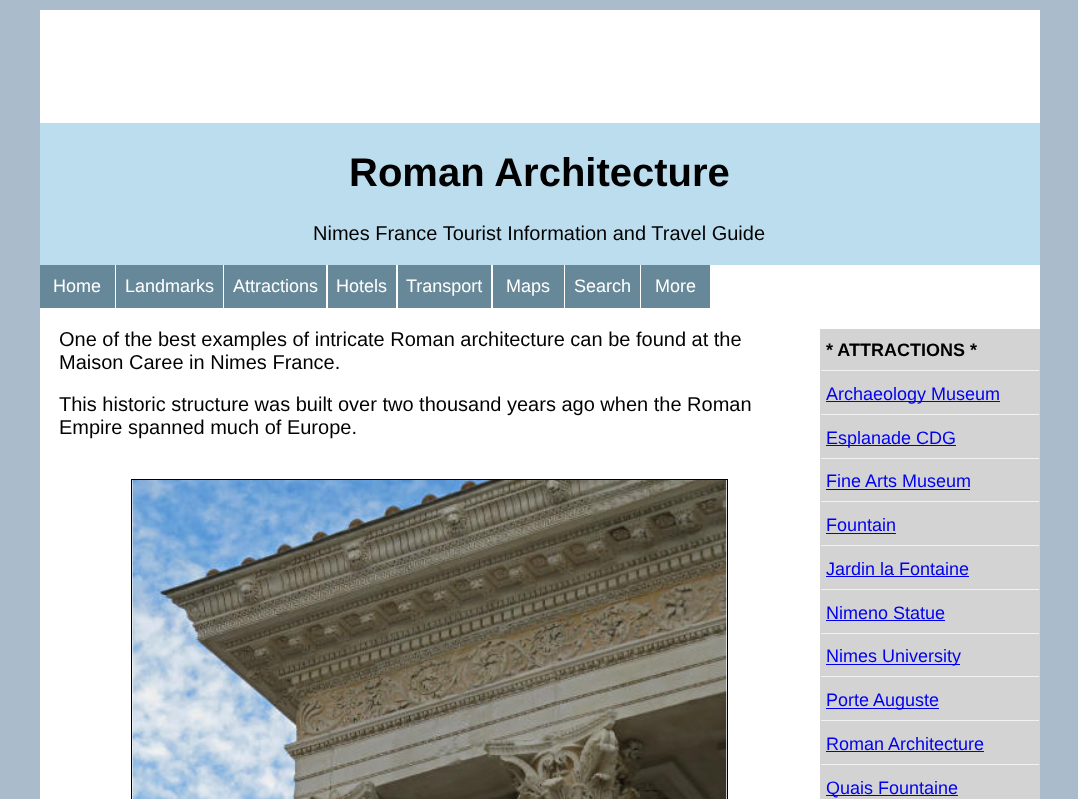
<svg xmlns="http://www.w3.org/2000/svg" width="1078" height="799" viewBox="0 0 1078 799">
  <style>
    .t1 { font: bold 40px Liberation Sans; fill: #000; }
    .t2 { font: 20px Liberation Sans; fill: #000; }
    .t3 { font: 18px Liberation Sans; fill: #fff; }
    .t4 { font: bold 18px Liberation Sans; fill: #000; }
    .t5 { font: 18px Liberation Sans; fill: #00e; }
  </style>
  <rect width="100%" height="100%" fill="#abc"/>
  <rect x="40" y="10" width="1000" height="789" fill="#fff"/>
  <rect x="40" y="123" width="1000" height="142" fill="#bde"/>
  <text x="349" y="186" class="t1">Roman Architecture</text>
  <text x="313" y="240" class="t2">Nimes France Tourist Information and Travel Guide</text>
  <rect x="40" y="265" width="75" height="43" fill="#689"/>
  <text x="53" y="292" class="t3">Home</text>
  <rect x="116" y="265" width="107" height="43" fill="#689"/>
  <text x="125" y="292" class="t3">Landmarks</text>
  <rect x="224" y="265" width="102" height="43" fill="#689"/>
  <text x="233" y="292" class="t3">Attractions</text>
  <rect x="328" y="265" width="68" height="43" fill="#689"/>
  <text x="336" y="292" class="t3">Hotels</text>
  <rect x="398" y="265" width="93" height="43" fill="#689"/>
  <text x="406" y="292" class="t3">Transport</text>
  <rect x="493" y="265" width="71" height="43" fill="#689"/>
  <text x="506" y="292" class="t3">Maps</text>
  <rect x="565" y="265" width="75" height="43" fill="#689"/>
  <text x="574" y="292" class="t3">Search</text>
  <rect x="641" y="265" width="69" height="43" fill="#689"/>
  <text x="655" y="292" class="t3">More</text>
  <text x="59" y="346" class="t2">One of the best examples of intricate Roman architecture can be found at the</text>
  <text x="59" y="369" class="t2">Maison Caree in Nimes France.</text>
  <text x="59" y="411" class="t2">This historic structure was built over two thousand years ago when the Roman</text>
  <text x="59" y="434" class="t2">Empire spanned much of Europe.</text>
  <rect x="131.5" y="479.5" width="596" height="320" fill="none" stroke="#000"/>
  <image x="132" y="480" width="595" height="319" href="images/1.png"/>
  <rect x="820" y="329" width="220" height="470" fill="#d3d3d3"/>
  <rect x="821" y="370" width="218" height="1" fill="#f2f2f2"/>
  <text x="826" y="356" class="t4">* ATTRACTIONS *</text>
  <rect x="821" y="414" width="218" height="1" fill="#f2f2f2"/>
  <rect x="826" y="401" width="174" height="1" fill="#00e"/>
  <text x="826" y="400" class="t5">Archaeology Museum</text>
  <rect x="821" y="458" width="218" height="1" fill="#f2f2f2"/>
  <rect x="826" y="445" width="130" height="1" fill="#00e"/>
  <text x="826" y="444" class="t5">Esplanade CDG</text>
  <rect x="821" y="501" width="218" height="1" fill="#f2f2f2"/>
  <text x="826" y="487" class="t5">Fine Arts Museum</text>
  <rect x="826" y="489" width="144" height="1" fill="#00e"/>
  <rect x="821" y="545" width="218" height="1" fill="#f2f2f2"/>
  <text x="826" y="531" class="t5">Fountain</text>
  <rect x="826" y="533" width="70" height="1" fill="#00e"/>
  <rect x="821" y="589" width="218" height="1" fill="#f2f2f2"/>
  <text x="826" y="575" class="t5">Jardin la Fontaine</text>
  <rect x="826" y="576" width="143" height="1" fill="#00e"/>
  <rect x="821" y="633" width="218" height="1" fill="#f2f2f2"/>
  <text x="826" y="619" class="t5">Nimeno Statue</text>
  <rect x="826" y="620" width="119" height="1" fill="#00e"/>
  <rect x="821" y="676" width="218" height="1" fill="#f2f2f2"/>
  <rect x="826" y="664" width="134" height="1" fill="#00e"/>
  <text x="826" y="662" class="t5">Nimes University</text>
  <rect x="821" y="720" width="218" height="1" fill="#f2f2f2"/>
  <rect x="826" y="708" width="113" height="1" fill="#00e"/>
  <text x="826" y="706" class="t5">Porte Auguste</text>
  <rect x="821" y="764" width="218" height="1" fill="#f2f2f2"/>
  <text x="826" y="750" class="t5">Roman Architecture</text>
  <rect x="826" y="751" width="158" height="1" fill="#00e"/>
  <rect x="826" y="795" width="132" height="1" fill="#00e"/>
  <text x="826" y="794" class="t5">Quais Fountaine</text>
</svg>
